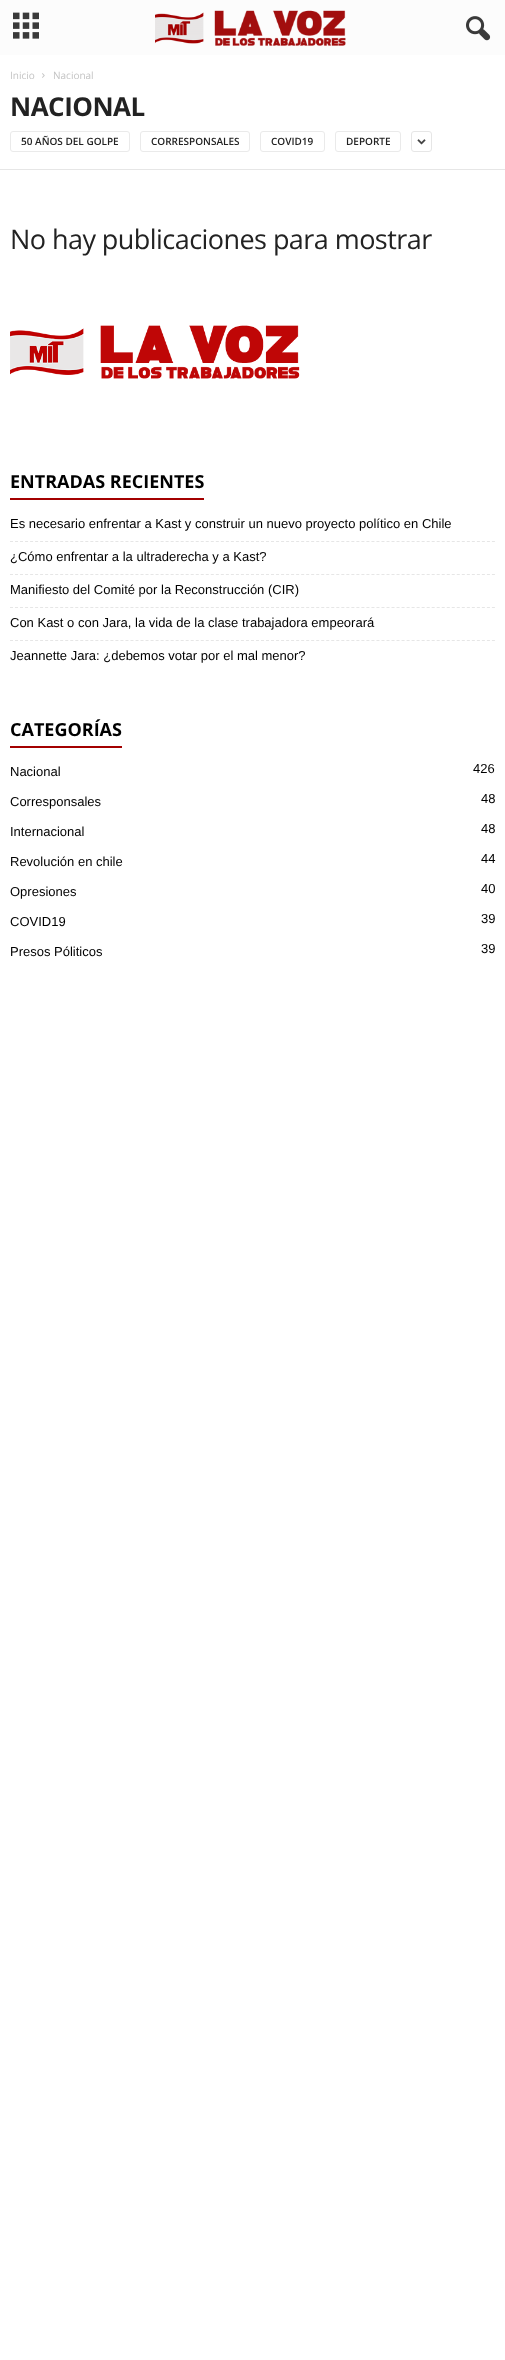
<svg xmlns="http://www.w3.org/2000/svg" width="505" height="2360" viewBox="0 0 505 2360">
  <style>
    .t1 { font: 10px Open Sans; fill: #c3c3c3; }
    .t2 { font: bold 26px Open Sans; letter-spacing: -0.5px; fill: #222; }
    .t3 { font: 600 10px Open Sans; fill: #222; }
    .t4 { font: 27px Open Sans; letter-spacing: -0.55px; fill: #222; }
    .t5 { font: bold 18px Open Sans; fill: #000; }
    .t6 { font: 13px Liberation Sans; fill: #000; }
  </style>
  <rect width="100%" height="100%" fill="#fff"/>
  <rect x="0" y="0" width="505" height="55" fill="#fcfcfc"/>
  <image x="13" y="12" width="26" height="27" href="images/1.png"/>
  <image x="155" y="10" width="191" height="36" href="images/2.png"/>
  <image x="466" y="16" width="25" height="25" href="images/3.png"/>
  <text x="10" y="79" class="t1">Inicio</text>
  <image x="42" y="73" width="3" height="5" href="images/4.png"/>
  <text x="53" y="79" class="t1">Nacional</text>
  <text x="10" y="116" class="t2">NACIONAL</text>
  <rect x="10.5" y="131.5" width="119" height="20" rx="2.5" fill="none" stroke="#eaeaea"/>
  <text x="21" y="145" class="t3">50 AÑOS DEL GOLPE</text>
  <rect x="140.5" y="131.5" width="109" height="20" rx="2.5" fill="none" stroke="#eaeaea"/>
  <text x="151" y="145" class="t3">CORRESPONSALES</text>
  <rect x="260.5" y="131.5" width="64" height="20" rx="2.5" fill="none" stroke="#eaeaea"/>
  <text x="271" y="145" class="t3">COVID19</text>
  <rect x="335.5" y="131.5" width="65" height="20" rx="2.5" fill="none" stroke="#eaeaea"/>
  <text x="346" y="145" class="t3">DEPORTE</text>
  <rect x="411.5" y="131.5" width="20" height="20" rx="2.5" fill="none" stroke="#e6e6e6"/>
  <image x="417" y="139" width="9" height="6" href="images/5.png"/>
  <rect x="0" y="169" width="505" height="1" fill="#e6e6e6"/>
  <text x="10" y="249" class="t4">No hay publicaciones para mostrar</text>
  <image x="10" y="325" width="290" height="54" href="images/6.png"/>
  <text x="10" y="488" class="t5">ENTRADAS RECIENTES</text>
  <rect x="10" y="498" width="194" height="2" fill="#a30000"/>
  <path d="M10 541.5H495" fill="none" stroke="#e6e6e6" stroke-dasharray="3 2.02"/>
  <text x="10" y="528" class="t6">Es necesario enfrentar a Kast y construir un nuevo proyecto político en Chile</text>
  <path d="M10 574.5H495" fill="none" stroke="#e6e6e6" stroke-dasharray="3 2.02"/>
  <text x="10" y="561" class="t6">¿Cómo enfrentar a la ultraderecha y a Kast?</text>
  <path d="M10 607.5H495" fill="none" stroke="#e6e6e6" stroke-dasharray="3 2.02"/>
  <text x="10" y="594" class="t6">Manifiesto del Comité por la Reconstrucción (CIR)</text>
  <path d="M10 640.5H495" fill="none" stroke="#e6e6e6" stroke-dasharray="3 2.02"/>
  <text x="10" y="627" class="t6">Con Kast o con Jara, la vida de la clase trabajadora empeorará</text>
  <text x="10" y="660" class="t6">Jeannette Jara: ¿debemos votar por el mal menor?</text>
  <text x="10" y="736" class="t5">CATEGORÍAS</text>
  <rect x="10" y="746" width="112" height="2" fill="#a30000"/>
  <text x="10" y="776" class="t6">Nacional</text>
  <text x="473" y="773" class="t6">426</text>
  <text x="10" y="806" class="t6">Corresponsales</text>
  <text x="481" y="803" class="t6">48</text>
  <text x="10" y="836" class="t6">Internacional</text>
  <text x="481" y="833" class="t6">48</text>
  <text x="10" y="866" class="t6">Revolución en chile</text>
  <text x="481" y="863" class="t6">44</text>
  <text x="10" y="896" class="t6">Opresiones</text>
  <text x="481" y="893" class="t6">40</text>
  <text x="10" y="926" class="t6">COVID19</text>
  <text x="481" y="923" class="t6">39</text>
  <text x="10" y="956" class="t6">Presos Póliticos</text>
  <text x="481" y="953" class="t6">39</text>
</svg>
